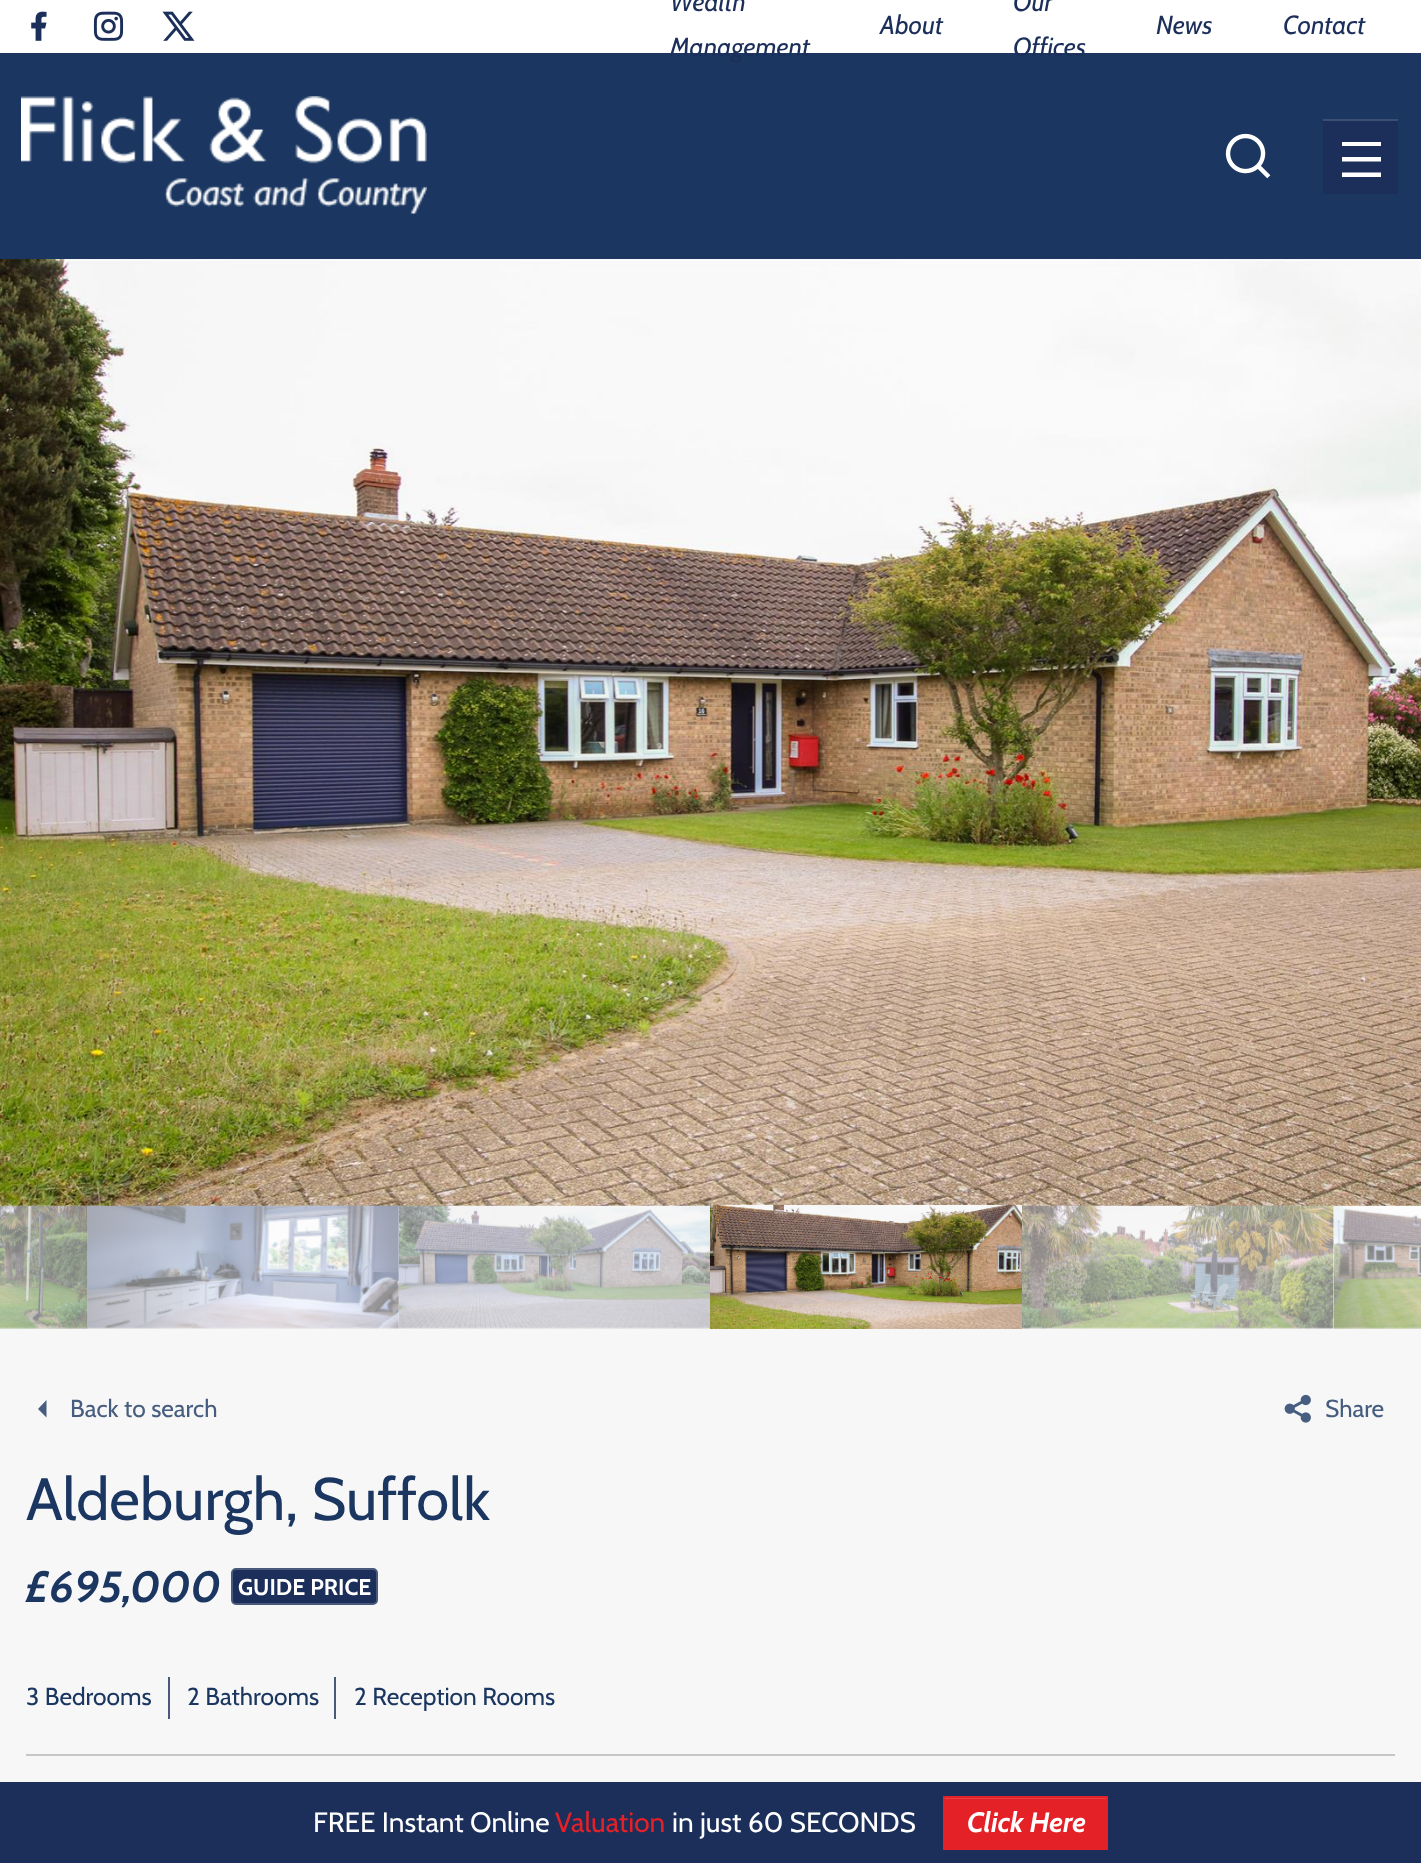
<svg xmlns="http://www.w3.org/2000/svg" width="1421" height="1863" viewBox="0 0 1421 1863">
  <style>
    .t1 { font: italic 26.25px Cabin; fill: #1b2f5a; }
    .t2 { font: 24.5px Cabin; fill: #475d7f; }
    .t3 { font: 59.75px Cabin; fill: #1b3761; }
    .t4 { font: italic bold 43.75px Cabin; fill: #1b3761; }
    .t5 { font: bold 22.75px Cabin; fill: #fff; }
    .t6 { font: 24.5px Cabin; fill: #1b3761; }
    .t7 { font: 28px Cabin; fill: #fff; }
    .t8 { font: 28px Cabin; fill: #e42127; }
    .t9 { font: italic bold 28px Cabin; fill: #fff; }
  </style>
  <rect width="100%" height="100%" fill="#1b3761"/>
  <rect x="0" y="0" width="1421" height="53" fill="#fff"/>
  <image x="31" y="11" width="16" height="30" href="images/1.png"/>
  <image x="93" y="11" width="31" height="30" href="images/2.png"/>
  <image x="162" y="11" width="33" height="30" href="images/3.png"/>
  <text x="670" y="11" class="t1">Wealth</text>
  <text x="670" y="56" class="t1">Management</text>
  <text x="880" y="34" class="t1">About</text>
  <text x="1013" y="11" class="t1">Our</text>
  <text x="1013" y="56" class="t1">Offices</text>
  <text x="1156" y="34" class="t1">News</text>
  <text x="1283" y="34" class="t1">Contact</text>
  <image x="21" y="96" width="406" height="118" href="images/4.png"/>
  <image x="1225" y="133" width="46" height="46" href="images/5.png"/>
  <rect x="1323" y="121" width="75" height="73" fill="#1b2f5a"/>
  <rect x="1323" y="119" width="75" height="2" fill="#3d4e73"/>
  <path d="M1342 142H1381V146H1342ZM1342 157H1381V161.5H1342ZM1342 172.5H1381V177H1342Z" fill="#fff"/>
  <rect x="0" y="1205" width="1421" height="577" fill="#f7f7f7"/>
  <image x="0" y="259" width="1421" height="947" href="images/6.png"/>
  <rect x="0" y="1206" width="1421" height="122" fill="#fff"/>
  <image x="0" y="1206" width="88" height="123" href="images/7.png"/>
  <image x="87" y="1205" width="312" height="124" href="images/8.png"/>
  <image x="399" y="1205" width="311" height="124" href="images/9.png"/>
  <image x="710" y="1205" width="312" height="124" href="images/10.png"/>
  <image x="1022" y="1205" width="312" height="124" href="images/11.png"/>
  <image x="1334" y="1206" width="87" height="123" href="images/12.png"/>
  <path d="M38 1409L46.5 1400V1417.5Z" fill="#475d7f"/>
  <text x="70" y="1417" class="t2">Back to search</text>
  <image x="1284" y="1394" width="27" height="29" href="images/13.png"/>
  <text x="1325" y="1417" class="t2">Share</text>
  <text x="26" y="1520" class="t3">Aldeburgh, Suffolk</text>
  <text x="26" y="1602" class="t4">£695,000</text>
  <rect x="232" y="1569" width="145" height="35" rx="4" fill="#1b2f5a" stroke="#49597b" stroke-width="2"/>
  <text x="238" y="1595" class="t5">GUIDE PRICE</text>
  <text x="26" y="1705" class="t6">3 Bedrooms</text>
  <rect x="168" y="1677" width="2" height="42" fill="#49597b"/>
  <text x="187" y="1705" class="t6">2 Bathrooms</text>
  <rect x="334" y="1677" width="2" height="42" fill="#49597b"/>
  <text x="354" y="1705" class="t6">2 Reception Rooms</text>
  <rect x="26" y="1754" width="1369" height="2" fill="#c6c6c6"/>
  <rect x="0" y="1782" width="1421" height="81" fill="#1b2f5a"/>
  <text x="313" y="1832" class="t7">FREE Instant Online</text>
  <text x="555" y="1832" class="t8">Valuation</text>
  <text x="672" y="1832" class="t7">in just 60 SECONDS</text>
  <rect x="945" y="1799" width="161" height="49" fill="#e42127"/>
  <rect x="945" y="1798" width="161" height="1" fill="#e84247"/>
  <rect x="944" y="1797" width="163" height="52" fill="none" stroke="#e42127" stroke-width="2"/>
  <text x="967" y="1832" class="t9">Click Here</text>
</svg>
